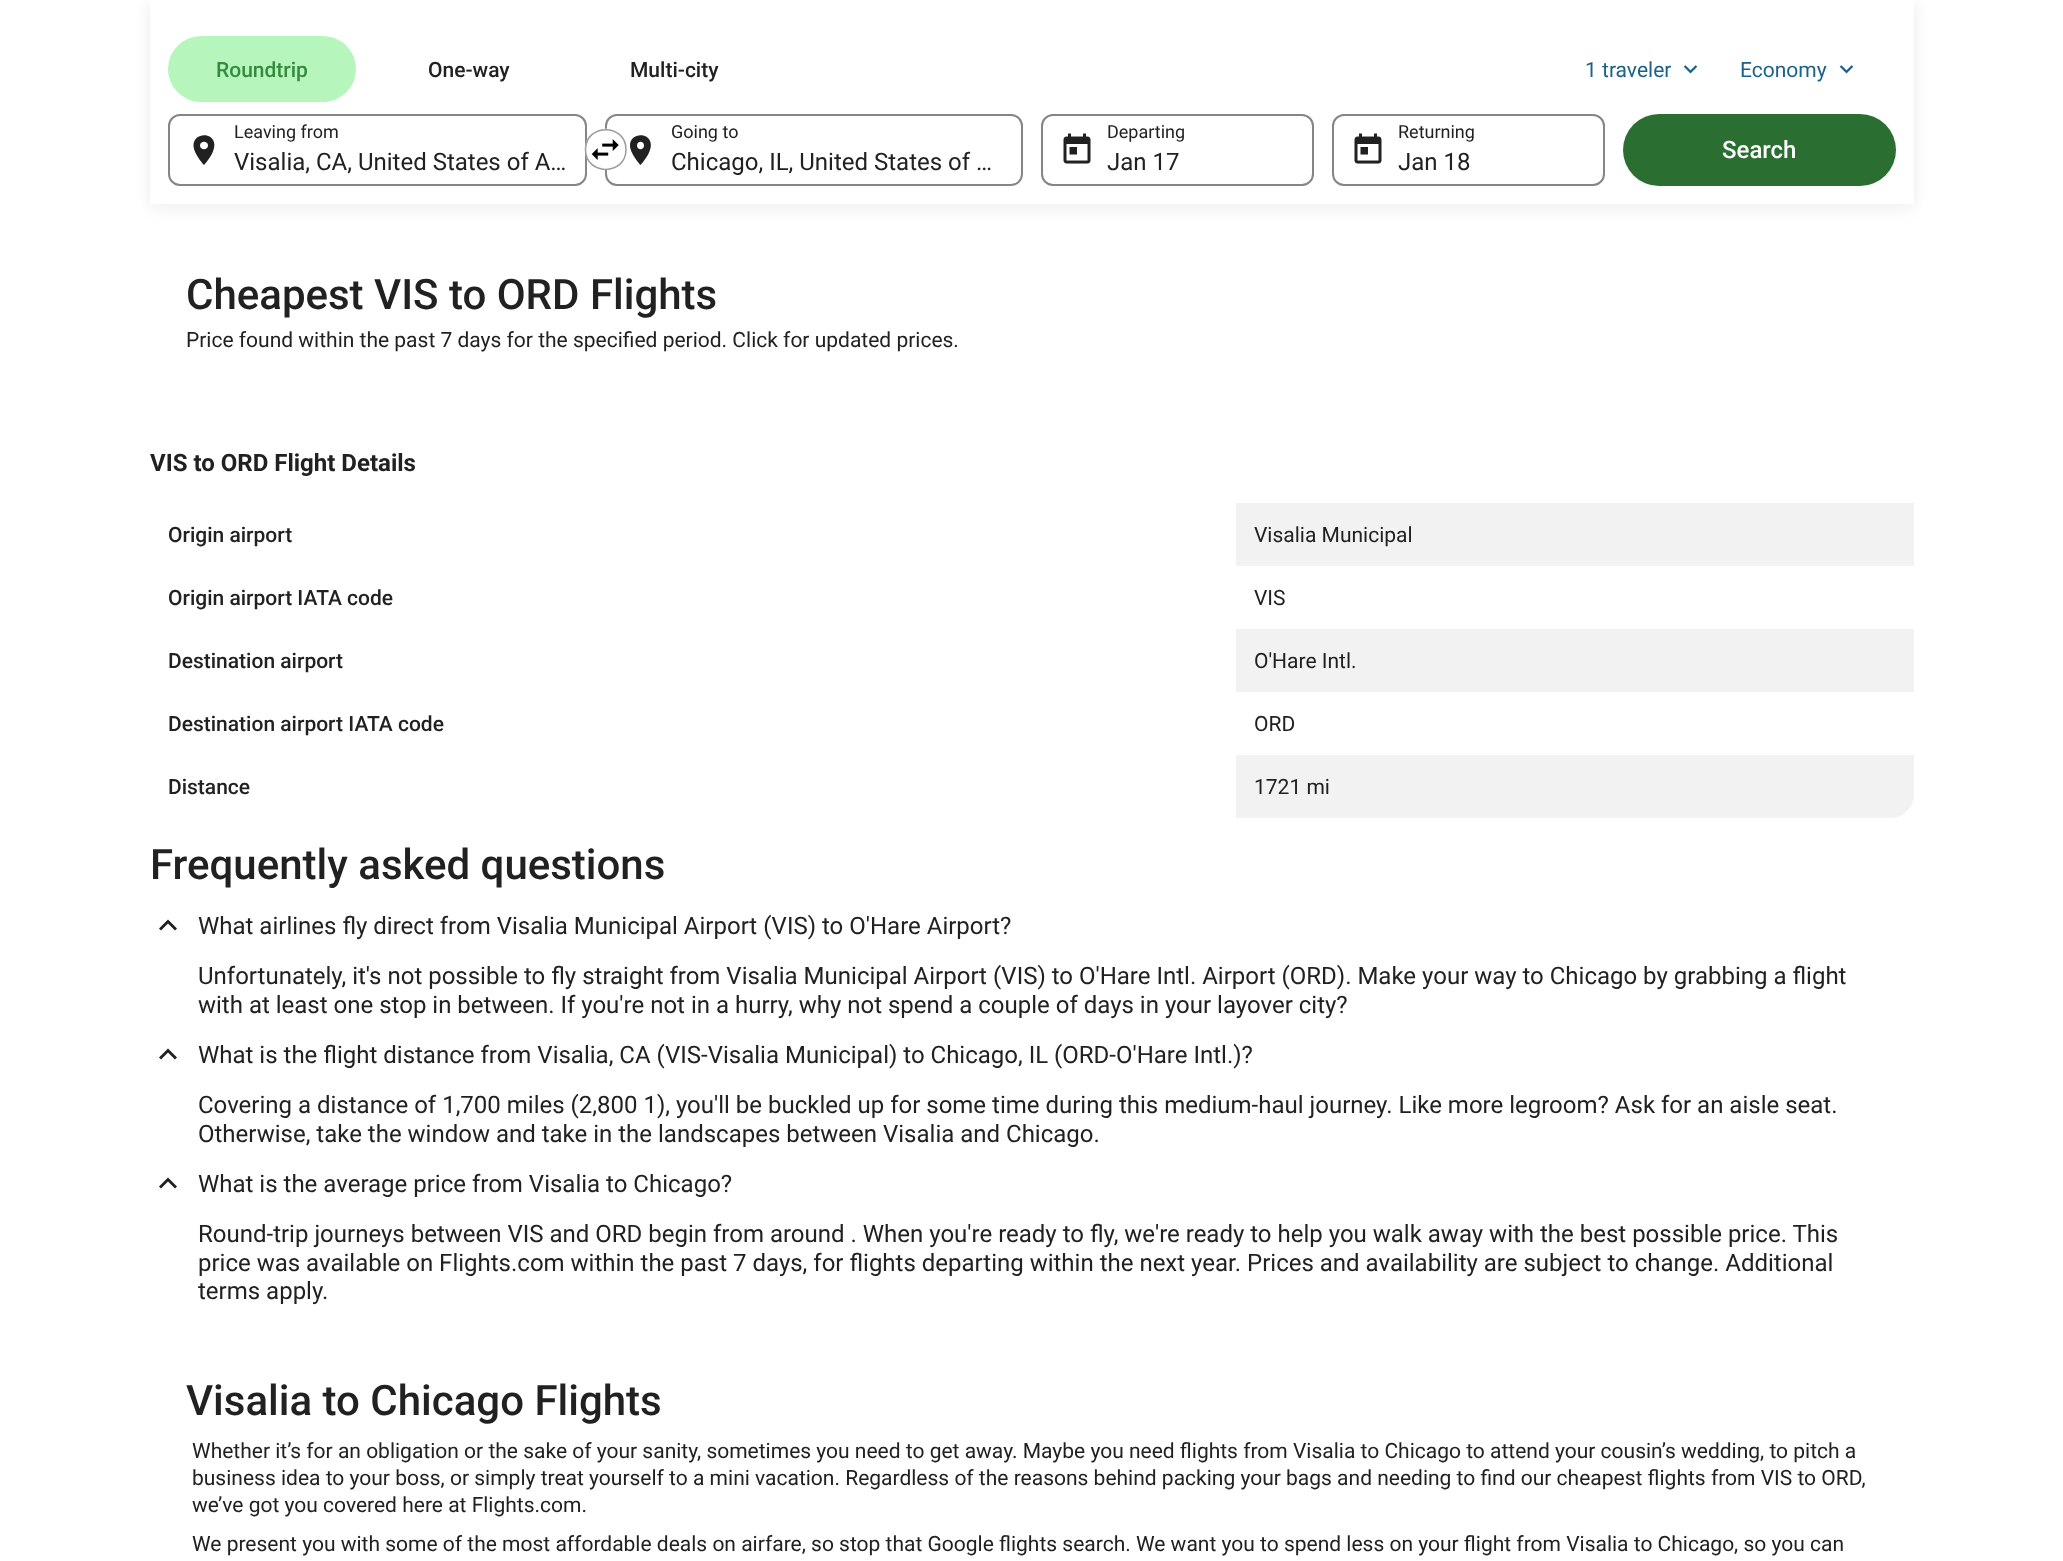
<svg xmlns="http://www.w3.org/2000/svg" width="2063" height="1561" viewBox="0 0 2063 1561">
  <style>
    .t1 { font: 500 21px Roboto; fill: #338c3c; }
    .t2 { font: 500 21px Roboto; fill: #212121; }
    .t3 { font: 21px Roboto; fill: #1a628b; }
    .t4 { font: 18px Roboto; fill: #212121; }
    .t5 { font: 24px Roboto; fill: #212121; }
    .t6 { font: 500 24px Roboto; fill: #fff; }
    .t7 { font: 500 42px Roboto; fill: #212121; }
    .t8 { font: 21px Roboto; fill: #212121; }
    .t9 { font: bold 24px Roboto; fill: #212121; }
  </style>
  <rect width="100%" height="100%" fill="#fff"/>
  <rect x="150" y="3" width="1764" height="204" fill="#10101014" filter="blur(9px)"/>
  <rect x="150" y="0" width="1764" height="204" fill="#fff"/>
  <rect x="168" y="36" width="188" height="66" rx="33" fill="#b6f5bc"/>
  <text x="216" y="77" class="t1">Roundtrip</text>
  <text x="428" y="77" class="t2">One-way</text>
  <text x="630" y="77" class="t2">Multi-city</text>
  <text x="1585" y="77" class="t3">1 traveler</text>
  <image x="1683" y="65" width="15" height="9" href="images/1.png"/>
  <text x="1740" y="77" class="t3">Economy</text>
  <image x="1839" y="65" width="15" height="9" href="images/1.png"/>
  <rect x="169" y="115" width="417" height="70" rx="11" fill="none" stroke="#858585" stroke-width="2"/>
  <text x="234" y="138" class="t4">Leaving from</text>
  <path d="M193.5 145.5C193.5 127 232.5 133.5 204 165C204 165 193.5 153.5 193.5 145.5ZM200 145.5C200 150.5 208 150.5 208 145.5C208 140.5 200 140.5 200 145.5Z" fill="#212121" fill-rule="evenodd"/>
  <text x="234" y="170" class="t5">Visalia, CA, United States of A…</text>
  <rect x="606" y="115" width="416" height="70" rx="11" fill="none" stroke="#858585" stroke-width="2"/>
  <path d="M627 149C627 177 585 177 585 149C585 122 627 122 627 149Z" fill="#fff"/>
  <path d="M626 149.5C626 176 585.5 176 585.5 149.5C585.5 123 626 123 626 149.5Z" fill="none" stroke="#9c9c9c" stroke-width="1.5"/>
  <image x="591" y="139" width="28" height="21" href="images/2.png"/>
  <path d="M630 145.5C630 127 669 133.5 640.5 165C640.5 165 630 153.5 630 145.5ZM637 145.5C637 150.5 644 150.5 644 145.5C644 140.5 637 140.5 637 145.5Z" fill="#212121" fill-rule="evenodd"/>
  <text x="671" y="138" class="t4">Going to</text>
  <text x="671" y="170" class="t5">Chicago, IL, United States of …</text>
  <rect x="1042" y="115" width="271" height="70" rx="11" fill="none" stroke="#858585" stroke-width="2"/>
  <image x="1063" y="133" width="28" height="31" href="images/3.png"/>
  <text x="1107" y="138" class="t4">Departing</text>
  <text x="1107" y="170" class="t5">Jan 17</text>
  <rect x="1333" y="115" width="271" height="70" rx="11" fill="none" stroke="#858585" stroke-width="2"/>
  <image x="1354" y="133" width="28" height="31" href="images/3.png"/>
  <text x="1398" y="138" class="t4">Returning</text>
  <text x="1398" y="170" class="t5">Jan 18</text>
  <rect x="1623" y="114" width="273" height="72" rx="36" fill="#2a6f31"/>
  <text x="1722" y="158" class="t6">Search</text>
  <text x="186" y="309" class="t7">Cheapest VIS to ORD Flights</text>
  <text x="186" y="347" class="t8">Price found within the past 7 days for the specified period. Click for updated prices.</text>
  <text x="150" y="471" class="t9">VIS to ORD Flight Details</text>
  <text x="168" y="542" class="t2">Origin airport</text>
  <rect x="1236" y="503" width="678" height="63" fill="#f2f2f2"/>
  <text x="1254" y="542" class="t8">Visalia Municipal</text>
  <text x="168" y="605" class="t2">Origin airport IATA code</text>
  <text x="1254" y="605" class="t8">VIS</text>
  <text x="168" y="668" class="t2">Destination airport</text>
  <rect x="1236" y="629" width="678" height="63" fill="#f2f2f2"/>
  <text x="1254" y="668" class="t8">O'Hare Intl.</text>
  <text x="168" y="731" class="t2">Destination airport IATA code</text>
  <text x="1254" y="731" class="t8">ORD</text>
  <text x="168" y="794" class="t2">Distance</text>
  <path d="M1236 755H1914V794C1914 807.5 1903.5 818 1890 818H1236Z" fill="#f2f2f2"/>
  <text x="1254" y="794" class="t8">1721 mi</text>
  <text x="150" y="879" class="t7">Frequently asked questions</text>
  <path d="M161 930.5L168 923.5L175 930.5L177 928.5L168 919.5L159 928.5Z" fill="#212121"/>
  <text x="198" y="934" class="t5">What airlines fly direct from Visalia Municipal Airport (VIS) to O'Hare Airport?</text>
  <text x="198" y="984" class="t5">Unfortunately, it's not possible to fly straight from Visalia Municipal Airport (VIS) to O'Hare Intl. Airport (ORD). Make your way to Chicago by grabbing a flight</text>
  <text x="198" y="1013" class="t5">with at least one stop in between. If you're not in a hurry, why not spend a couple of days in your layover city?</text>
  <path d="M161 1059.5L168 1052.5L175 1059.5L177 1057.5L168 1048.5L159 1057.5Z" fill="#212121"/>
  <text x="198" y="1063" class="t5">What is the flight distance from Visalia, CA (VIS-Visalia Municipal) to Chicago, IL (ORD-O'Hare Intl.)?</text>
  <text x="198" y="1113" class="t5">Covering a distance of 1,700 miles (2,800 1), you'll be buckled up for some time during this medium-haul journey. Like more legroom? Ask for an aisle seat.</text>
  <text x="198" y="1142" class="t5">Otherwise, take the window and take in the landscapes between Visalia and Chicago.</text>
  <path d="M161 1188.5L168 1181.5L175 1188.5L177 1186.5L168 1177.5L159 1186.5Z" fill="#212121"/>
  <text x="198" y="1192" class="t5">What is the average price from Visalia to Chicago?</text>
  <text x="198" y="1242" class="t5">Round-trip journeys between VIS and ORD begin from around . When you're ready to fly, we're ready to help you walk away with the best possible price. This</text>
  <text x="198" y="1271" class="t5">price was available on Flights.com within the past 7 days, for flights departing within the next year. Prices and availability are subject to change. Additional</text>
  <text x="198" y="1299" class="t5">terms apply.</text>
  <text x="186" y="1415" class="t7">Visalia to Chicago Flights</text>
  <text x="192" y="1458" class="t8">Whether it’s for an obligation or the sake of your sanity, sometimes you need to get away. Maybe you need flights from Visalia to Chicago to attend your cousin’s wedding, to pitch a</text>
  <text x="192" y="1485" class="t8">business idea to your boss, or simply treat yourself to a mini vacation. Regardless of the reasons behind packing your bags and needing to find our cheapest flights from VIS to ORD,</text>
  <text x="192" y="1512" class="t8">we’ve got you covered here at Flights.com.</text>
  <text x="192" y="1551" class="t8">We present you with some of the most affordable deals on airfare, so stop that Google flights search. We want you to spend less on your flight from Visalia to Chicago, so you can</text>
</svg>
